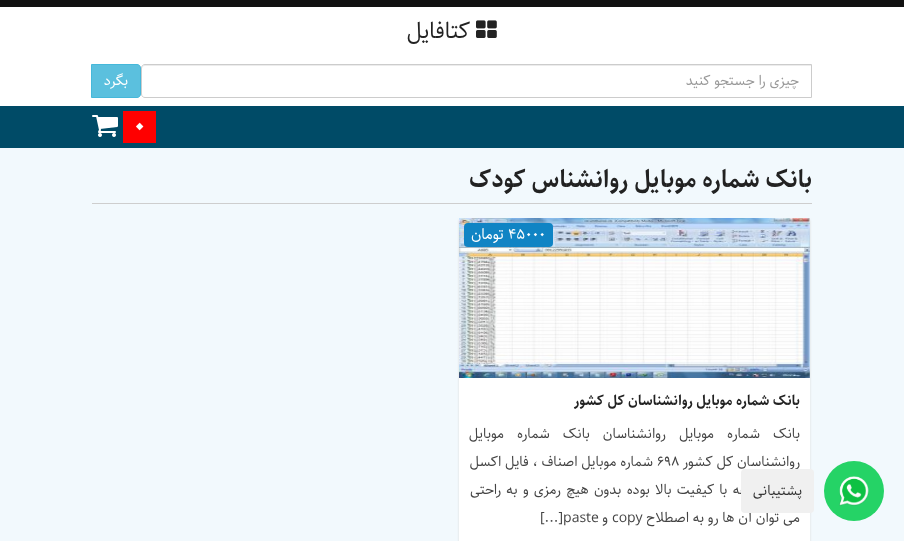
<svg xmlns="http://www.w3.org/2000/svg" width="904" height="541" viewBox="0 0 904 541">
  <style>
    .t1 { font: 22.5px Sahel; direction: rtl; fill: #222; }
    .t2 { font: 14px Sahel; direction: rtl; fill: #999; }
    .t3 { font: 14px Sahel; direction: rtl; fill: #fff; }
    .t4 { font: bold 28px Sahel; fill: #fff; }
    .t5 { font: bold 24px Sahel; direction: rtl; fill: #222; }
    .t6 { font: 15px Sahel; fill: #fff; }
    .t7 { font: 15px Sahel; direction: rtl; fill: #fff; }
    .t8 { font: bold 14px Sahel; direction: rtl; fill: #222; }
    .t9 { font: 14px Sahel; direction: rtl; fill: #444; }
    .t10 { font: 14px Sahel; fill: #444; }
    .t11 { font: 14px Sahel; direction: rtl; fill: #333; }
  </style>
  <rect width="100%" height="100%" fill="#f2f9fd"/>
  <rect x="0" y="0" width="904" height="7" fill="#111"/>
  <rect x="0" y="7" width="904" height="99" fill="#fff"/>
  <image x="476" y="20" width="21" height="18" href="images/1.png"/>
  <text x="470" y="38" class="t1">کتافایل</text>
  <path d="M145 66H811V65H145C143 65 142 66 142 68V69C142 67 143 66 145 66Z" fill="#ececec"/>
  <path d="M145 64.5H811.5V97.5H145C143 97.5 141.5 96 141.5 94V68C141.5 66 143 64.5 145 64.5Z" fill="none" stroke="#ccc"/>
  <text x="799" y="85" class="t2">چیزی را جستجو کنید</text>
  <path d="M91.5 64.5H137C139 64.5 140.5 66 140.5 68V94C140.5 96 139 97.5 137 97.5H91.5Z" fill="#5bc0de" stroke="#46b8da"/>
  <text x="128" y="85" class="t3">بگرد</text>
  <rect x="0" y="106" width="904" height="42" fill="#004b67"/>
  <rect x="123" y="111" width="33" height="32" fill="#f00"/>
  <text x="133" y="135" class="t4">0</text>
  <image x="92" y="115" width="26" height="22" href="images/2.png"/>
  <rect x="92" y="203" width="720" height="1" fill="#cecece"/>
  <text x="812" y="187" class="t5">بانک شماره موبایل روانشناس کودک</text>
  <rect x="459" y="220" width="351" height="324" fill="#dbdbdb" filter="blur(1px)"/>
  <rect x="459" y="218" width="351" height="323" fill="#fff"/>
  <image x="459" y="218" width="351" height="160" href="images/3.png"/>
  <rect x="464" y="223" width="89" height="24" rx="4" fill="#1084c4"/>
  <text x="508" y="239" class="t6">45000</text>
  <text x="504" y="239" class="t7">تومان</text>
  <text x="800" y="405" class="t8">بانک شماره موبایل روانشناسان کل کشور</text>
  <text x="800" y="438" word-spacing="9.25" class="t9">بانک شماره موبایل روانشناسان بانک شماره موبایل</text>
  <text x="800" y="466" class="t9">روانشناسان کل کشور</text>
  <text x="657" y="466" class="t10">۶۹۸</text>
  <text x="653" y="466" class="t9">شماره موبایل اصناف ، فایل اکسل</text>
  <text x="800" y="494" word-spacing="1.5" class="t9">این مجموعه با کیفیت بالا بوده بدون هیچ رمزی و به راحتی</text>
  <text x="800" y="522" class="t9">می توان آن ها رو به اصطلاح</text>
  <text x="612" y="522" class="t10">copy</text>
  <text x="608" y="522" class="t9">و</text>
  <text x="540" y="522" class="t10">[...]paste</text>
  <circle cx="854" cy="491" r="30" fill="#25d366"/>
  <image x="839" y="476" width="30" height="30" href="images/4.png"/>
  <rect x="741" y="469" width="73" height="44" rx="4" fill="#f0f0f0"/>
  <text x="802" y="495" class="t11">پشتیبانی</text>
</svg>
